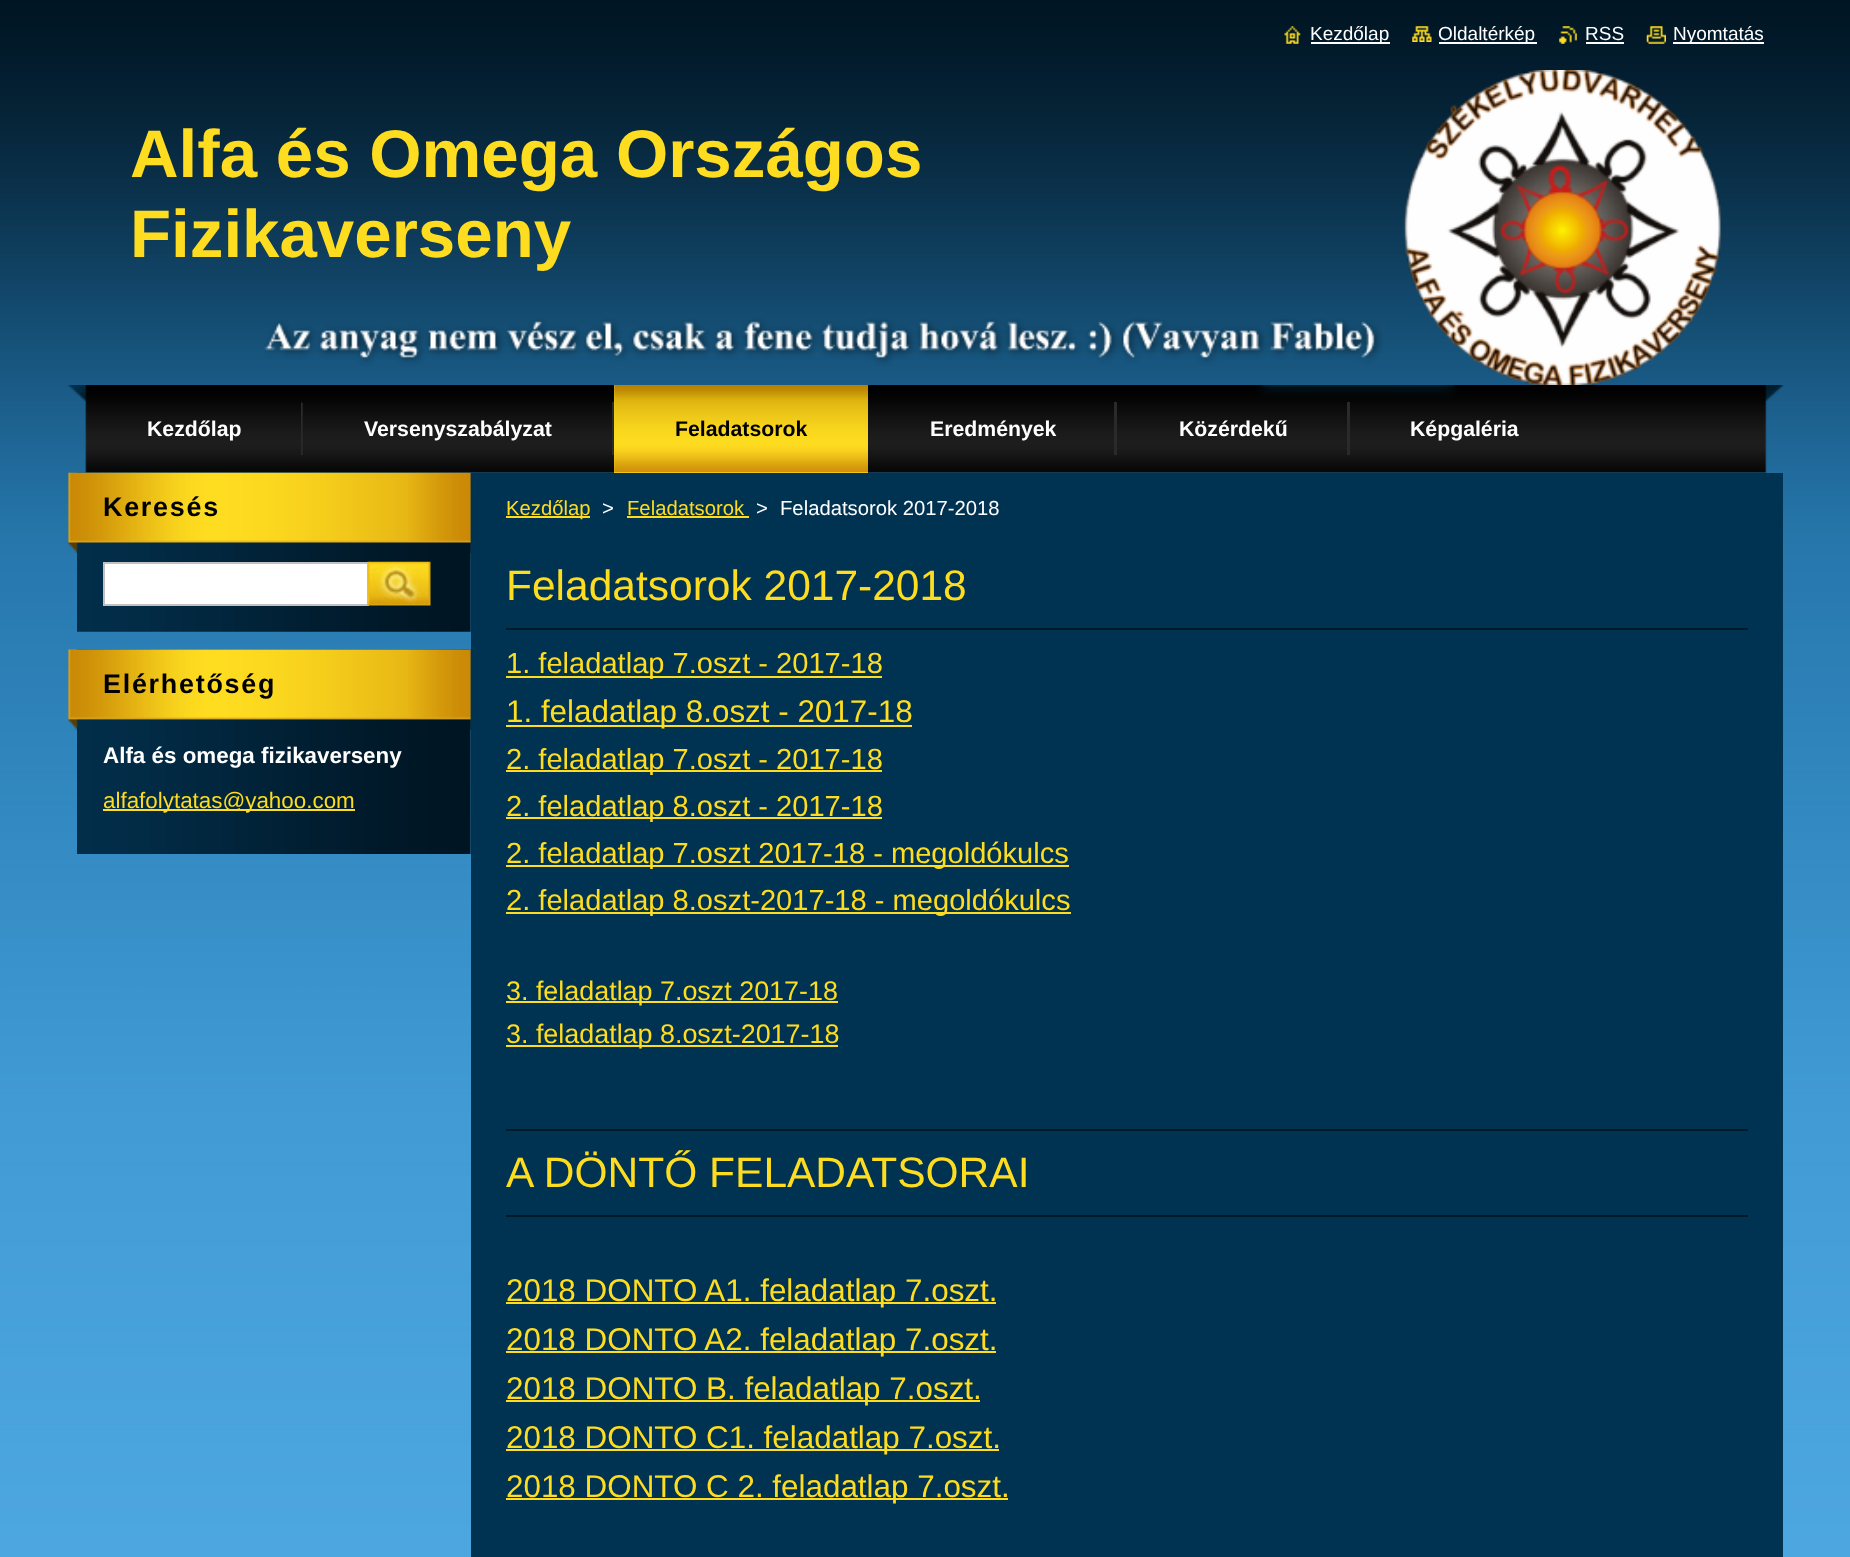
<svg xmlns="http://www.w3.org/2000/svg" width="1850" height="1557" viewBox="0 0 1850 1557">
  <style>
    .t1 { font: 19px Liberation Sans; fill: #fff; }
    .t2 { font: bold 67.25px Liberation Sans; fill: #fedc20; }
    .t3 { font: bold 21.25px Liberation Sans; fill: #fff; }
    .t4 { font: bold 21.25px Liberation Sans; fill: #000; }
    .t5 { font: bold 26.9px Liberation Sans; letter-spacing: 1.75px; fill: #000; }
    .t6 { font: bold 22.4px Liberation Sans; fill: #fff; }
    .t7 { font: 22.4px Liberation Sans; fill: #fedc20; }
    .t8 { font: 20.25px Liberation Sans; fill: #fedc20; }
    .t9 { font: 20.25px Liberation Sans; fill: #fff; }
    .t10 { font: 42.5px Liberation Sans; fill: #fedc20; }
    .t11 { font: 29.1px Liberation Sans; fill: #fedc20; }
    .t12 { font: 31.4px Liberation Sans; fill: #fedc20; }
    .t13 { font: 26.9px Liberation Sans; fill: #fedc20; }
  </style>
  <rect width="100%" height="100%" fill="#fff"/>
  <image x="0" y="0" width="1850" height="1557" href="images/1.png"/>
  <image x="1284" y="26" width="17" height="18" href="images/2.png"/>
  <rect x="1311" y="42" width="79" height="2" fill="#fff"/>
  <text x="1310" y="40" class="t1">Kezdőlap</text>
  <image x="1412" y="26" width="20" height="16" href="images/3.png"/>
  <rect x="1439" y="42" width="98" height="2" fill="#fff"/>
  <text x="1438" y="40" class="t1">Oldaltérkép</text>
  <image x="1559" y="26" width="18" height="18" href="images/4.png"/>
  <text x="1585" y="40" class="t1">RSS</text>
  <rect x="1586" y="42" width="38" height="2" fill="#fff"/>
  <image x="1646" y="26" width="20" height="18" href="images/5.png"/>
  <rect x="1673" y="42" width="91" height="2" fill="#fff"/>
  <text x="1673" y="40" class="t1">Nyomtatás</text>
  <image x="264" y="70" width="1457" height="315" href="images/6.png"/>
  <text x="130" y="177" class="t2">Alfa és Omega Országos</text>
  <text x="130" y="257" class="t2">Fizikaverseny</text>
  <image x="68" y="385" width="1716" height="88" href="images/7.png"/>
  <image x="301" y="402" width="2" height="53" href="images/8.png"/>
  <text x="147" y="436" class="t3">Kezdőlap</text>
  <rect x="612" y="402" width="2" height="53" fill="#2a2a2a"/>
  <text x="364" y="436" class="t3">Versenyszabályzat</text>
  <rect x="614" y="385" width="254" height="88" fill="#f7d41c"/>
  <image x="614" y="385" width="254" height="88" href="images/9.png"/>
  <text x="675" y="436" class="t4">Feladatsorok</text>
  <rect x="1114" y="402" width="3" height="53" fill="#2a2a2a"/>
  <text x="930" y="436" class="t3">Eredmények</text>
  <rect x="1347" y="402" width="3" height="53" fill="#2a2a2a"/>
  <text x="1179" y="436" class="t3">Közérdekű</text>
  <text x="1410" y="436" class="t3">Képgaléria</text>
  <image x="77" y="472" width="394" height="160" href="images/10.png"/>
  <image x="68" y="472" width="403" height="81" href="images/11.png"/>
  <text x="103" y="516" class="t5">Keresés</text>
  <rect x="104" y="563" width="264" height="42" fill="#fff" stroke="#c1c1c1" stroke-width="2"/>
  <image x="367" y="561" width="64" height="45" href="images/12.png"/>
  <image x="77" y="649" width="394" height="205" href="images/13.png"/>
  <image x="68" y="649" width="403" height="81" href="images/14.png"/>
  <text x="103" y="693" class="t5">Elérhetőség</text>
  <text x="103" y="763" class="t6">Alfa és omega fizikaverseny</text>
  <rect x="103" y="809" width="252" height="2" fill="#fedc20"/>
  <text x="103" y="808" class="t7">alfafolytatas@yahoo.com</text>
  <rect x="471" y="473" width="1312" height="1084" fill="#003251"/>
  <rect x="506" y="516" width="84" height="2" fill="#fedc20"/>
  <text x="506" y="515" class="t8">Kezdőlap</text>
  <text x="602" y="515" class="t9">&gt;</text>
  <text x="627" y="515" class="t8">Feladatsorok</text>
  <rect x="627" y="516" width="122" height="2" fill="#fedc20"/>
  <text x="756" y="515" class="t9">&gt;</text>
  <text x="780" y="515" class="t9">Feladatsorok 2017-2018</text>
  <rect x="506" y="628" width="1242" height="2" fill="#001929"/>
  <text x="506" y="600" class="t10">Feladatsorok 2017-2018</text>
  <rect x="506" y="676" width="376" height="2" fill="#fedc20"/>
  <text x="506" y="673" class="t11">1. feladatlap 7.oszt - 2017-18</text>
  <rect x="506" y="725" width="406" height="2" fill="#fedc20"/>
  <text x="506" y="722" class="t12">1. feladatlap 8.oszt - 2017-18</text>
  <rect x="506" y="770" width="376" height="2" fill="#fedc20"/>
  <text x="506" y="769" class="t11">2. feladatlap 7.oszt - 2017-18</text>
  <rect x="506" y="817" width="376" height="2" fill="#fedc20"/>
  <text x="506" y="816" class="t11">2. feladatlap 8.oszt - 2017-18</text>
  <rect x="506" y="865" width="563" height="2" fill="#fedc20"/>
  <text x="506" y="863" class="t11">2. feladatlap 7.oszt 2017-18 - megoldókulcs</text>
  <rect x="506" y="912" width="565" height="2" fill="#fedc20"/>
  <text x="506" y="910" class="t11">2. feladatlap 8.oszt-2017-18 - megoldókulcs</text>
  <rect x="506" y="1001" width="332" height="2" fill="#fedc20"/>
  <text x="506" y="1000" class="t13">3. feladatlap 7.oszt 2017-18</text>
  <rect x="506" y="1045" width="332" height="2" fill="#fedc20"/>
  <text x="506" y="1043" class="t13">3. feladatlap 8.oszt-2017-18</text>
  <rect x="506" y="1129" width="1242" height="2" fill="#001929"/>
  <rect x="506" y="1215" width="1242" height="2" fill="#001929"/>
  <text x="506" y="1187" class="t10">A DÖNTŐ FELADATSORAI</text>
  <rect x="506" y="1302" width="490" height="2" fill="#fedc20"/>
  <text x="506" y="1301" class="t12">2018 DONTO A1. feladatlap 7.oszt.</text>
  <rect x="506" y="1351" width="490" height="2" fill="#fedc20"/>
  <text x="506" y="1350" class="t12">2018 DONTO A2. feladatlap 7.oszt.</text>
  <rect x="506" y="1400" width="474" height="2" fill="#fedc20"/>
  <text x="506" y="1399" class="t12">2018 DONTO B. feladatlap 7.oszt.</text>
  <rect x="506" y="1449" width="493" height="2" fill="#fedc20"/>
  <text x="506" y="1448" class="t12">2018 DONTO C1. feladatlap 7.oszt.</text>
  <rect x="506" y="1498" width="502" height="2" fill="#fedc20"/>
  <text x="506" y="1497" class="t12">2018 DONTO C 2. feladatlap 7.oszt.</text>
</svg>
